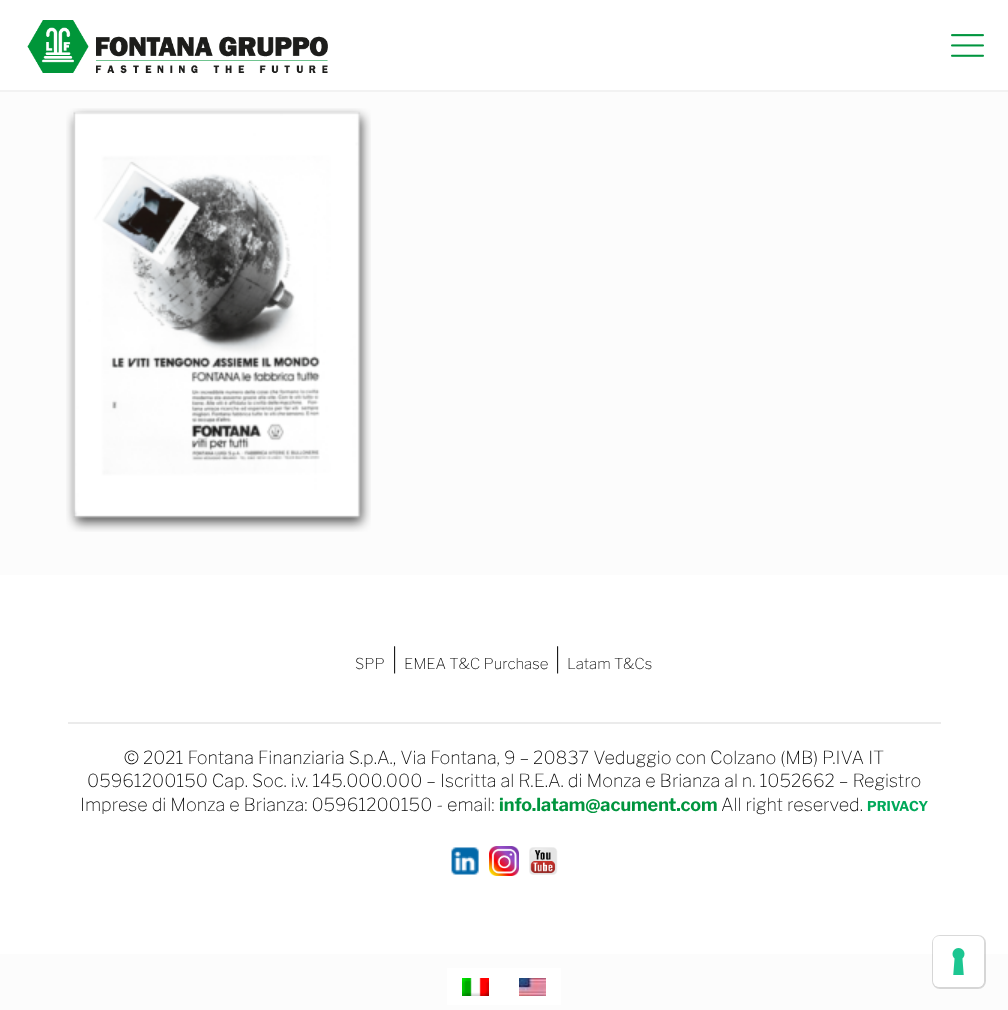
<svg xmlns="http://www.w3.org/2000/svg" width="1008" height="1010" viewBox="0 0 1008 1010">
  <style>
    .t1 { font: 100 15px Libre Franklin; fill: #000; }
    .t2 { font: 100 27px Libre Franklin; fill: #000; }
    .t3 { font: 100 18px Libre Franklin; fill: #000; }
    .t4 { font: bold 18px Libre Franklin; fill: #00953e; }
    .t5 { font: bold 13.5px Libre Franklin; fill: #00a95a; }
  </style>
  <rect width="100%" height="100%" fill="#fcfcfc"/>
  <rect x="0" y="0" width="1008" height="90" fill="#fff"/>
  <rect x="0" y="90" width="1008" height="2" fill="#f2f2f2"/>
  <image x="27" y="20" width="301" height="54" href="images/1.png"/>
  <image x="951" y="34" width="33" height="23" href="images/2.png"/>
  <image x="66" y="108" width="305" height="424" href="images/3.png"/>
  <rect x="0" y="575" width="1008" height="379" fill="#fff"/>
  <text x="355" y="669" class="t1">SPP</text>
  <text x="391" y="669" class="t2">|</text>
  <text x="404" y="669" class="t1">EMEA T&amp;C Purchase</text>
  <text x="554" y="669" class="t2">|</text>
  <text x="567" y="669" class="t1">Latam T&amp;Cs</text>
  <rect x="68" y="722" width="873" height="2" fill="#ebebeb"/>
  <text x="124" y="764" class="t3">© 2021 Fontana Finanziaria S.p.A., Via Fontana, 9 – 20837 Veduggio con Colzano (MB) P.IVA IT</text>
  <text x="87" y="787" class="t3">05961200150 Cap. Soc. i.v. 145.000.000 – Iscritta al R.E.A. di Monza e Brianza al n. 1052662 – Registro</text>
  <text x="80" y="811" class="t3">Imprese di Monza e Brianza: 05961200150 - email:</text>
  <text x="499" y="811" class="t4">info.latam@acument.com</text>
  <text x="721" y="811" class="t3">All right reserved.</text>
  <text x="867" y="811" class="t5">PRIVACY</text>
  <image x="451" y="847" width="28" height="28" href="images/4.png"/>
  <image x="489" y="846" width="30" height="30" href="images/5.png"/>
  <image x="529" y="847" width="29" height="28" href="images/6.png"/>
  <rect x="447" y="968" width="114" height="37" fill="#fff"/>
  <image x="462" y="978" width="27" height="18" href="images/7.png"/>
  <image x="519" y="978" width="27" height="18" href="images/8.png"/>
  <rect x="933" y="936" width="52" height="52" rx="7" fill="none" stroke="#00000026" stroke-width="2"/>
  <rect x="933" y="936" width="51" height="51" rx="6" fill="#fff"/>
  <image x="952" y="948" width="13" height="27" href="images/9.png"/>
</svg>
